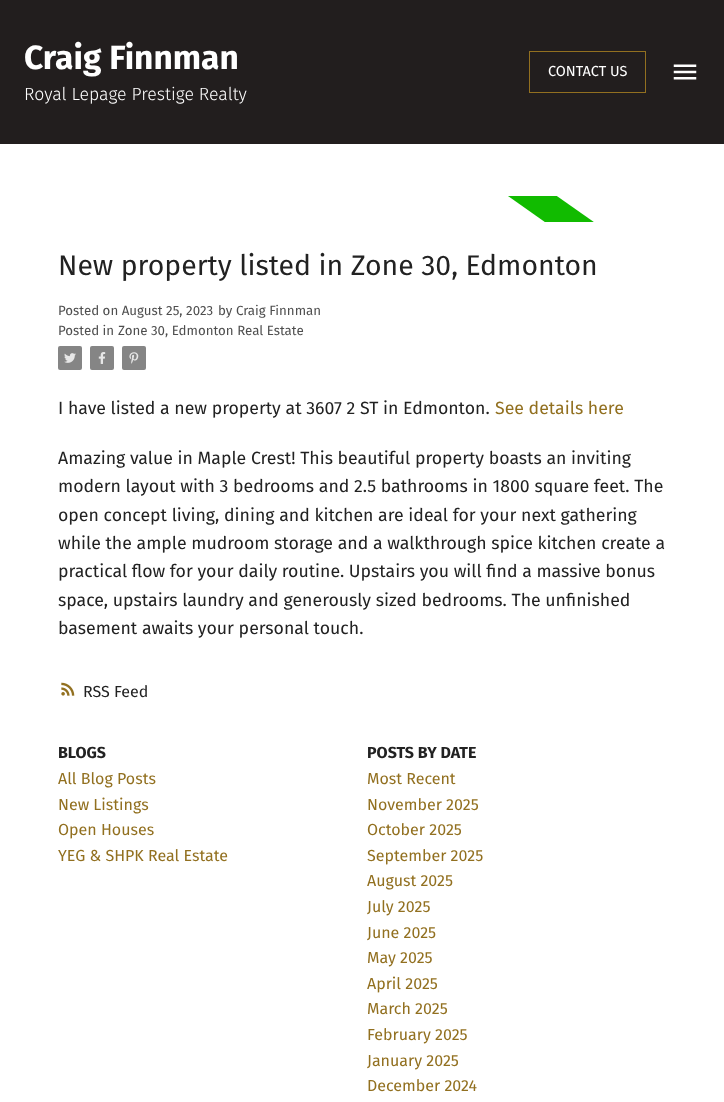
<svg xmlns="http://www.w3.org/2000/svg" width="724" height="1102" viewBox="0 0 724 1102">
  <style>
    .t1 { font: bold 33.5px Fira Sans; fill: #fff; }
    .t2 { font: 300 17.7px Fira Sans; fill: #fff; }
    .t3 { font: 14.5px Fira Sans; fill: #fff; }
    .t4 { font: 28.4px Fira Sans; fill: #222; }
    .t5 { font: 13.3px Fira Sans; fill: #4e4e4e; }
    .t6 { font: 17.7px Fira Sans; fill: #222; }
    .t7 { font: 17.7px Fira Sans; fill: #927020; }
    .t8 { font: 16px Fira Sans; fill: #222; }
    .t9 { font: bold 16px Fira Sans; fill: #222; }
    .t10 { font: 16px Fira Sans; fill: #927020; }
  </style>
  <defs>
    <clipPath id="clip1"><rect x="58" y="196" width="608" height="26"/></clipPath>
  </defs>
  <rect width="100%" height="100%" fill="#fff"/>
  <rect x="0" y="0" width="724" height="144" fill="#221e1e"/>
  <text x="24" y="69" class="t1">Craig Finnman</text>
  <text x="24" y="100" class="t2">Royal Lepage Prestige Realty</text>
  <rect x="529.5" y="51.5" width="116" height="41" fill="none" stroke="#927020"/>
  <text x="548" y="76" class="t3">CONTACT US</text>
  <image x="673" y="64" width="24" height="16" href="images/1.png"/>
  <g clip-path="url(#clip1)">
    <path d="M507 161L712 305L695 328L491 184Z" fill="#1b0"/>
  </g>
  <text x="58" y="275" class="t4">New property listed in Zone 30, Edmonton</text>
  <text x="58" y="315" class="t5">Posted on August 25, 2023</text>
  <text x="218" y="315" class="t5">by Craig Finnman</text>
  <text x="58" y="335" class="t5">Posted in</text>
  <text x="118" y="335" class="t5">Zone 30, Edmonton Real Estate</text>
  <rect x="58" y="346" width="24" height="24" rx="2" fill="#858585"/>
  <image x="64" y="353" width="12" height="10" href="images/2.png"/>
  <rect x="90" y="346" width="24" height="24" rx="2" fill="#858585"/>
  <image x="98" y="352" width="8" height="12" href="images/3.png"/>
  <rect x="122" y="346" width="24" height="24" rx="2" fill="#858585"/>
  <image x="129" y="352" width="10" height="12" href="images/4.png"/>
  <text x="58" y="414" class="t6">I have listed a new property at 3607 2 ST in Edmonton.</text>
  <text x="495" y="414" class="t7">See details here</text>
  <text x="58" y="464" class="t6">Amazing value in Maple Crest! This beautiful property boasts an inviting</text>
  <text x="58" y="492" class="t6">modern layout with 3 bedrooms and 2.5 bathrooms in 1800 square feet. The</text>
  <text x="58" y="521" class="t6">open concept living, dining and kitchen are ideal for your next gathering</text>
  <text x="58" y="549" class="t6">while the ample mudroom storage and a walkthrough spice kitchen create a</text>
  <text x="58" y="577" class="t6">practical flow for your daily routine. Upstairs you will find a massive bonus</text>
  <text x="58" y="606" class="t6">space, upstairs laundry and generously sized bedrooms. The unfinished</text>
  <text x="58" y="634" class="t6">basement awaits your personal touch.</text>
  <image x="61" y="682" width="14" height="14" href="images/5.png"/>
  <text x="83" y="697" class="t8">RSS Feed</text>
  <text x="58" y="758" class="t9">BLOGS</text>
  <text x="58" y="784" class="t10">All Blog Posts</text>
  <text x="58" y="810" class="t10">New Listings</text>
  <text x="58" y="835" class="t10">Open Houses</text>
  <text x="58" y="861" class="t10">YEG &amp; SHPK Real Estate</text>
  <text x="367" y="758" class="t9">POSTS BY DATE</text>
  <text x="367" y="784" class="t10">Most Recent</text>
  <text x="367" y="810" class="t10">November 2025</text>
  <text x="367" y="835" class="t10">October 2025</text>
  <text x="367" y="861" class="t10">September 2025</text>
  <text x="367" y="886" class="t10">August 2025</text>
  <text x="367" y="912" class="t10">July 2025</text>
  <text x="367" y="938" class="t10">June 2025</text>
  <text x="367" y="963" class="t10">May 2025</text>
  <text x="367" y="989" class="t10">April 2025</text>
  <text x="367" y="1014" class="t10">March 2025</text>
  <text x="367" y="1040" class="t10">February 2025</text>
  <text x="367" y="1066" class="t10">January 2025</text>
  <text x="367" y="1091" class="t10">December 2024</text>
</svg>
